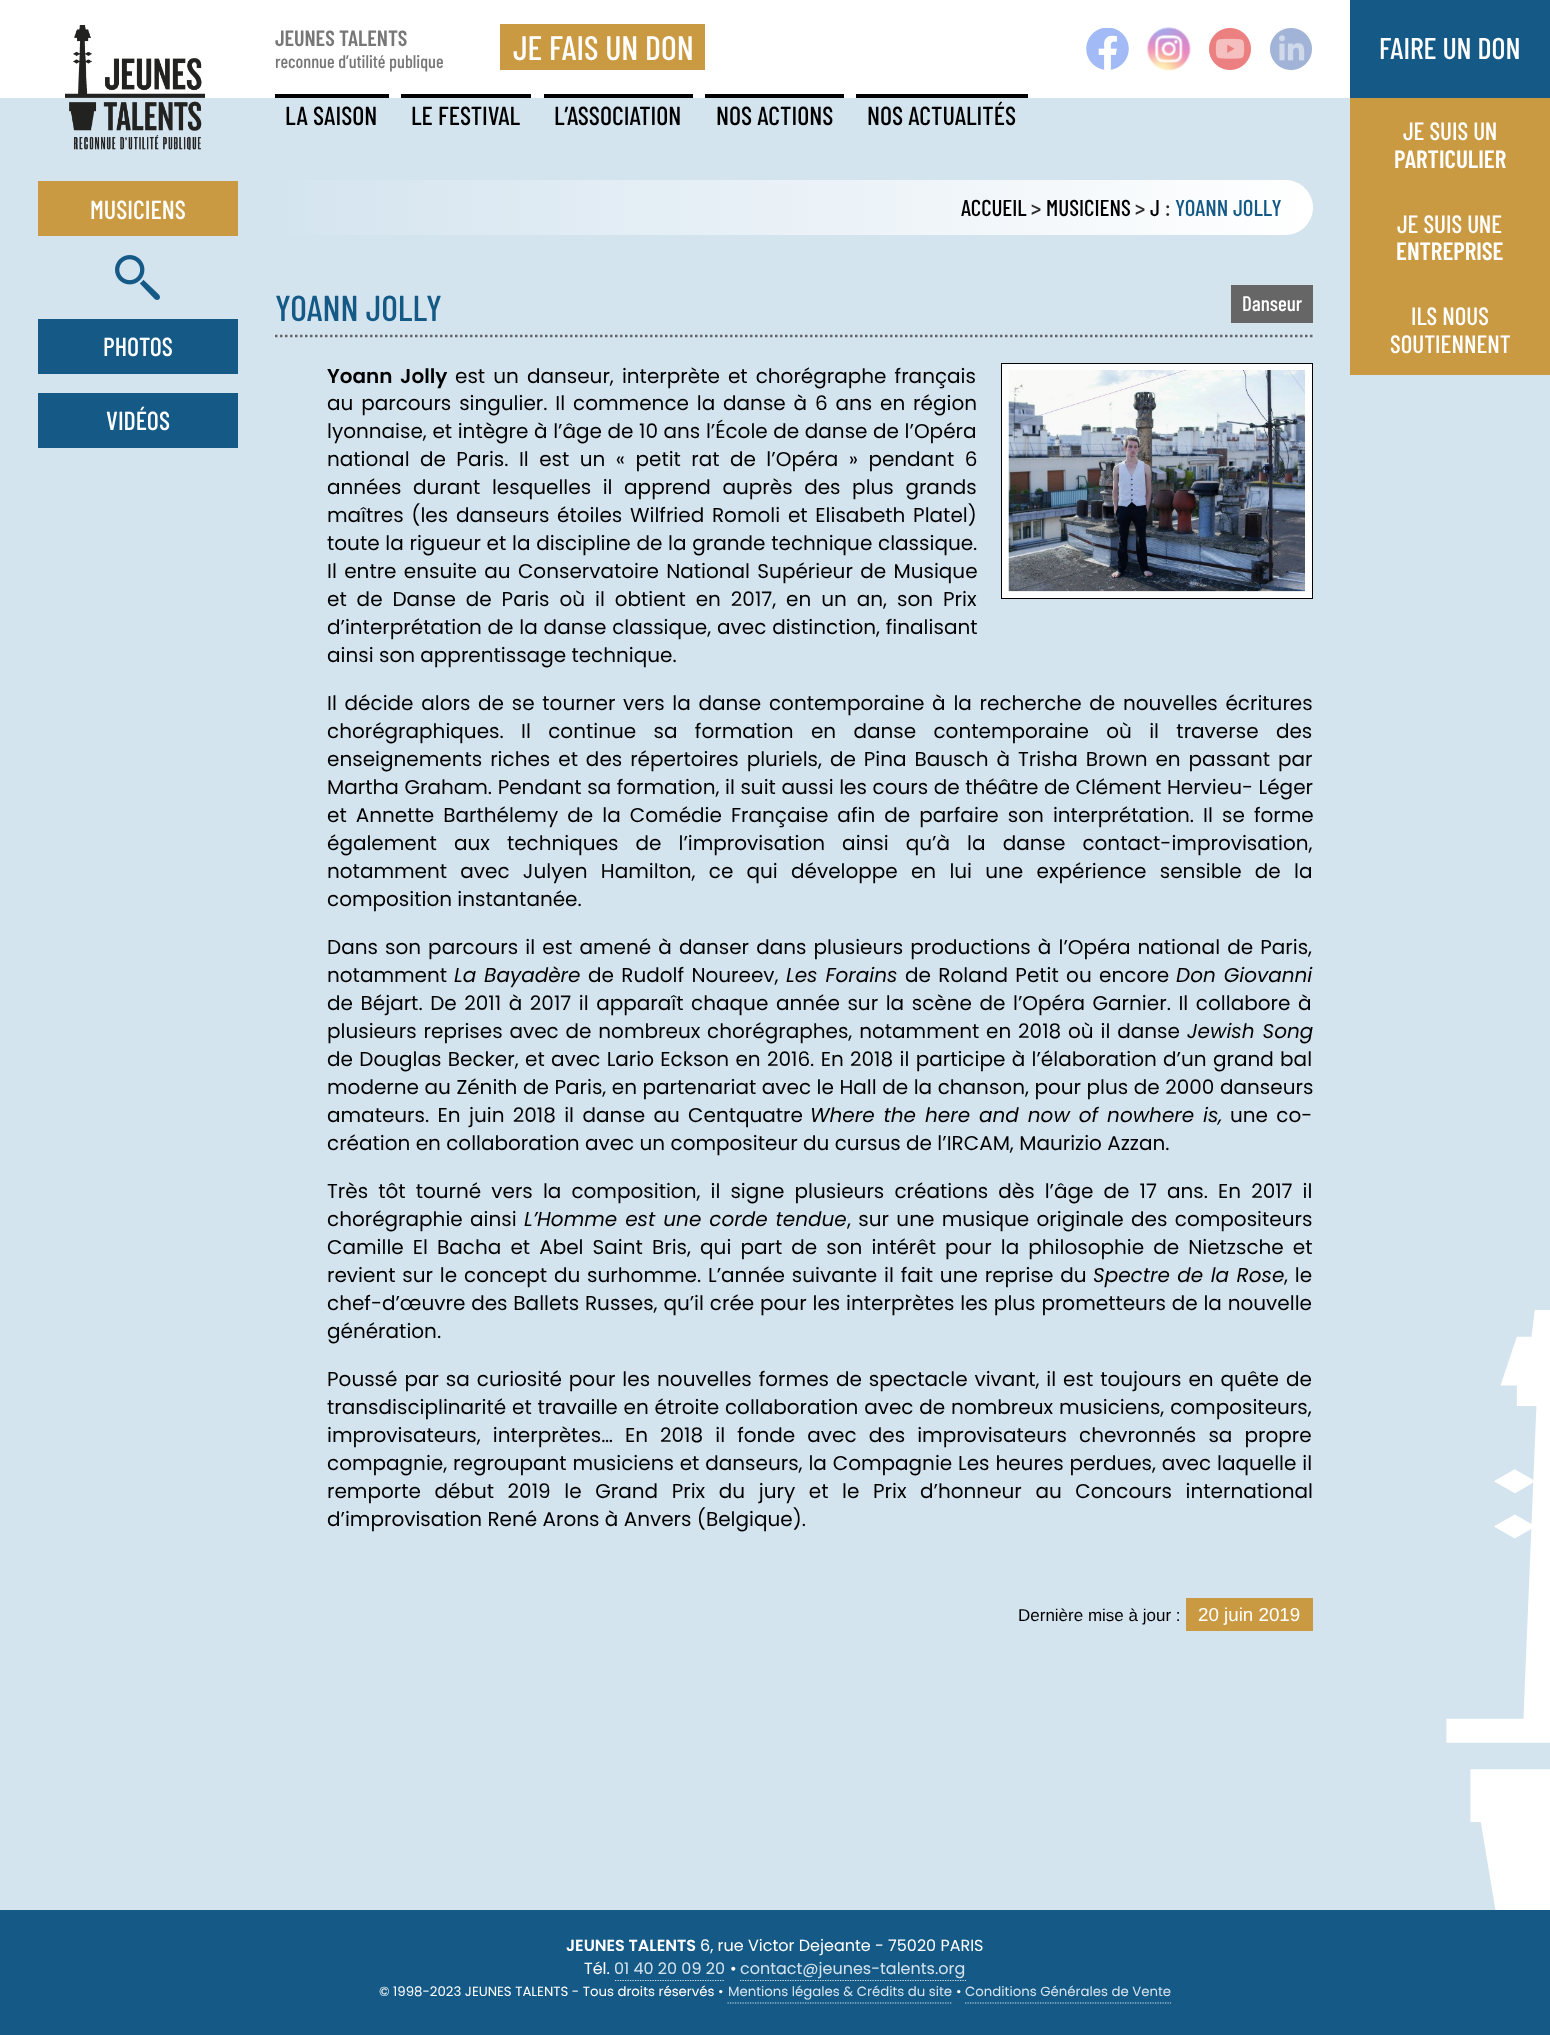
<svg xmlns="http://www.w3.org/2000/svg" width="1550" height="2035" viewBox="0 0 1550 2035">
  <style>
    .t1 { font: 600 22px Barlow Condensed; fill: #777; }
    .t2 { font: 500 18.25px Barlow Condensed; fill: #777; }
    .t3 { font: 500 34px Barlow Condensed; fill: #fff; }
    .t4 { font: 500 30px Barlow Condensed; fill: #fff; }
    .t5 { font: 500 25px Barlow Condensed; fill: #fff; }
    .t6 { font: 600 25px Barlow Condensed; fill: #fff; }
    .t7 { font: 500 26px Barlow Condensed; fill: #000; }
    .t8 { font: 500 26px Barlow Condensed; fill: #fff; }
    .t9 { font: 500 23px Barlow Condensed; fill: #000; }
    .t10 { font: 500 23px Barlow Condensed; fill: #303030; }
    .t11 { font: 500 23px Barlow Condensed; fill: #155a86; }
    .t12 { font: 500 36px Barlow Condensed; fill: #155a86; }
    .t13 { font: 500 21px Barlow Condensed; fill: #fff; }
    .t14 { font: 600 20px Poppins; fill: #000; }
    .t15 { font: 20px Poppins; fill: #000; }
    .t16 { font: italic 20px Poppins; fill: #000; }
    .t17 { font: 17px Liberation Sans; fill: #000; }
    .t18 { font: 18.75px Liberation Sans; fill: #fff; }
    .t19 { font: 600 16px Poppins; fill: #fff; }
    .t20 { font: 16px Poppins; fill: #fff; }
    .t21 { font: 16px Poppins; fill: #d4e4ef; }
    .t22 { font: 13.3px Poppins; fill: #fff; }
    .t23 { font: 13.3px Poppins; fill: #d4e4ef; }
  </style>
  <defs>
    <linearGradient id="g1" gradientUnits="userSpaceOnUse" x1="1313" y1="208" x2="275" y2="207"><stop offset="0" stop-color="#fff"/><stop offset="1" stop-color="#d4e4ef"/></linearGradient>
  </defs>
  <rect width="100%" height="100%" fill="#d4e4ef"/>
  <image x="1446" y="1310" width="104" height="600" href="images/1.png"/>
  <rect x="0" y="0" width="1350" height="98" fill="#fff"/>
  <image x="65" y="25" width="140" height="125" href="images/2.png"/>
  <text x="275" y="46" class="t1">JEUNES TALENTS</text>
  <text x="275" y="68" class="t2">reconnue d’utilité publique</text>
  <rect x="500" y="24" width="205" height="46" fill="#ca9a42"/>
  <text x="513" y="60" class="t3">JE FAIS UN DON</text>
  <image x="1086" y="28" width="43" height="42" href="images/3.png"/>
  <image x="1147" y="27" width="44" height="44" href="images/4.png"/>
  <image x="1209" y="28" width="42" height="42" href="images/5.png"/>
  <image x="1270" y="28" width="42" height="42" href="images/6.png"/>
  <rect x="1350" y="0" width="200" height="98" fill="#155a86"/>
  <text x="1379" y="59" class="t4">FAIRE UN DON</text>
  <rect x="1350" y="98" width="200" height="277" fill="#ca9a42"/>
  <text x="1403" y="140" class="t5">JE SUIS UN</text>
  <text x="1394" y="168" class="t6">PARTICULIER</text>
  <text x="1397" y="233" class="t5">JE SUIS UNE</text>
  <text x="1396" y="260" class="t6">ENTREPRISE</text>
  <text x="1411" y="325" class="t5">ILS NOUS</text>
  <text x="1390" y="353" class="t5">SOUTIENNENT</text>
  <rect x="275" y="94" width="114" height="4" fill="#000"/>
  <text x="285" y="125" class="t7">LA SAISON</text>
  <rect x="401" y="94" width="130" height="4" fill="#000"/>
  <text x="411" y="125" class="t7">LE FESTIVAL</text>
  <rect x="544" y="94" width="149" height="4" fill="#000"/>
  <text x="554" y="125" class="t7">L’ASSOCIATION</text>
  <rect x="705" y="94" width="139" height="4" fill="#000"/>
  <text x="716" y="125" class="t7">NOS ACTIONS</text>
  <rect x="856" y="94" width="172" height="4" fill="#000"/>
  <text x="867" y="125" class="t7">NOS ACTUALITÉS</text>
  <rect x="38" y="181" width="200" height="55" fill="#ca9a42"/>
  <text x="90" y="219" class="t8">MUSICIENS</text>
  <image x="115" y="255" width="45" height="45" href="images/7.png"/>
  <rect x="38" y="319" width="200" height="55" fill="#155a86"/>
  <text x="103" y="356" class="t8">PHOTOS</text>
  <rect x="38" y="393" width="200" height="55" fill="#155a86"/>
  <text x="106" y="430" class="t8">VIDÉOS</text>
  <path d="M275 180H1285.5C1300.5 180 1313 192.5 1313 207.5C1313 222.5 1300.5 235 1285.5 235H275Z" fill="url(#g1)"/>
  <text x="961" y="216" class="t9">ACCUEIL</text>
  <text x="1031" y="216" class="t10">&gt;</text>
  <text x="1046" y="216" class="t9">MUSICIENS</text>
  <text x="1135" y="216" class="t10">&gt;</text>
  <text x="1150" y="216" class="t9">J</text>
  <text x="1165" y="216" class="t10">:</text>
  <text x="1175" y="216" class="t11">YOANN JOLLY</text>
  <path d="M275 336H1312.5" fill="none" stroke="#666" stroke-width="2.5" stroke-dasharray="2.5 2.5"/>
  <text x="275" y="321" class="t12">YOANN JOLLY</text>
  <rect x="1231" y="285" width="82" height="38" fill="#666"/>
  <text x="1242" y="311" class="t13">Danseur</text>
  <text x="327" y="383" word-spacing="2.75" class="t14">Yoann Jolly</text>
  <text x="455" y="383" word-spacing="2.75" class="t15">est un danseur, interprète et chorégraphe français</text>
  <text x="327" y="410" word-spacing="2.5" class="t15">au parcours singulier. Il commence la danse à 6 ans en région</text>
  <text x="327" y="438" word-spacing="0.25" class="t15">lyonnaise, et intègre à l’âge de 10 ans l’École de danse de l’Opéra</text>
  <text x="327" y="466" word-spacing="5.1" class="t15">national de Paris. Il est un « petit rat de l’Opéra » pendant 6</text>
  <text x="327" y="494" word-spacing="6.25" class="t15">années durant lesquelles il apprend auprès des plus grands</text>
  <text x="327" y="522" word-spacing="2.4" class="t15">maîtres (les danseurs étoiles Wilfried Romoli et Elisabeth Platel)</text>
  <text x="327" y="550" word-spacing="0.4" class="t15">toute la rigueur et la discipline de la grande technique classique.</text>
  <text x="327" y="578" word-spacing="2" class="t15">Il entre ensuite au Conservatoire National Supérieur de Musique</text>
  <text x="327" y="606" word-spacing="4.6" class="t15">et de Danse de Paris où il obtient en 2017, en un an, son Prix</text>
  <text x="327" y="634" word-spacing="0.5" class="t15">d’interprétation de la danse classique, avec distinction, finalisant</text>
  <text x="327" y="662" class="t15">ainsi son apprentissage technique.</text>
  <rect x="1001.5" y="363.5" width="311" height="235" fill="#fff" stroke="#000"/>
  <image x="1008" y="370" width="297" height="222" href="images/8.png"/>
  <text x="327" y="710" word-spacing="2.4" class="t15">Il décide alors de se tourner vers la danse contemporaine à la recherche de nouvelles écritures</text>
  <text x="327" y="738" word-spacing="12" class="t15">chorégraphiques. Il continue sa formation en danse contemporaine où il traverse des</text>
  <text x="327" y="766" word-spacing="2.6" class="t15">enseignements riches et des répertoires pluriels, de Pina Bausch à Trisha Brown en passant par</text>
  <text x="327" y="794" word-spacing="0.25" class="t15">Martha Graham. Pendant sa formation, il suit aussi les cours de théâtre de Clément Hervieu- Léger</text>
  <text x="327" y="822" word-spacing="3.75" class="t15">et Annette Barthélemy de la Comédie Française afin de parfaire son interprétation. Il se forme</text>
  <text x="327" y="850" word-spacing="11.75" class="t15">également aux techniques de l’improvisation ainsi qu’à la danse contact-improvisation,</text>
  <text x="327" y="878" word-spacing="7.9" class="t15">notamment avec Julyen Hamilton, ce qui développe en lui une expérience sensible de la</text>
  <text x="327" y="906" class="t15">composition instantanée.</text>
  <text x="327" y="954" word-spacing="1.75" class="t15">Dans son parcours il est amené à danser dans plusieurs productions à l’Opéra national de Paris,</text>
  <text x="327" y="982" class="t15">notamment</text>
  <text x="454" y="982" word-spacing="2" class="t16">La Bayadère</text>
  <text x="588" y="982" word-spacing="2" class="t15">de Rudolf Noureev,</text>
  <text x="786" y="982" word-spacing="2" class="t16">Les Forains</text>
  <text x="905" y="982" word-spacing="2" class="t15">de Roland Petit ou encore</text>
  <text x="1176" y="982" word-spacing="2" class="t16">Don Giovanni</text>
  <text x="327" y="1010" word-spacing="2.25" class="t15">de Béjart. De 2011 à 2017 il apparaît chaque année sur la scène de l’Opéra Garnier. Il collabore à</text>
  <text x="327" y="1038" word-spacing="1.5" class="t15">plusieurs reprises avec de nombreux chorégraphes, notamment en 2018 où il danse</text>
  <text x="1187" y="1038" word-spacing="2" class="t16">Jewish Song</text>
  <text x="327" y="1066" word-spacing="1" class="t15">de Douglas Becker, et avec Lario Eckson en 2016. En 2018 il participe à l’élaboration d’un grand bal</text>
  <text x="327" y="1094" word-spacing="0.2" class="t15">moderne au Zénith de Paris, en partenariat avec le Hall de la chanson, pour plus de 2000 danseurs</text>
  <text x="327" y="1122" word-spacing="3" class="t15">amateurs. En juin 2018 il danse au Centquatre</text>
  <text x="810" y="1122" word-spacing="3" class="t16">Where the here and now of nowhere is,</text>
  <text x="1230" y="1122" word-spacing="3" class="t15">une co-</text>
  <text x="327" y="1150" class="t15">création en collaboration avec un compositeur du cursus de l’IRCAM, Maurizio Azzan.</text>
  <text x="327" y="1198" word-spacing="4.75" class="t15">Très tôt tourné vers la composition, il signe plusieurs créations dès l’âge de 17 ans. En 2017 il</text>
  <text x="327" y="1226" word-spacing="2" class="t15">chorégraphie ainsi</text>
  <text x="524" y="1226" word-spacing="2" class="t16">L’Homme est une corde tendue</text>
  <text x="847" y="1226" word-spacing="2" class="t15">, sur une musique originale des compositeurs</text>
  <text x="327" y="1254" word-spacing="3.75" class="t15">Camille El Bacha et Abel Saint Bris, qui part de son intérêt pour la philosophie de Nietzsche et</text>
  <text x="327" y="1282" word-spacing="1.5" class="t15">revient sur le concept du surhomme. L’année suivante il fait une reprise du</text>
  <text x="1093" y="1282" word-spacing="1.5" class="t16">Spectre de la Rose</text>
  <text x="1284" y="1282" word-spacing="1.5" class="t15">, le</text>
  <text x="327" y="1310" word-spacing="0.5" class="t15">chef-d’œuvre des Ballets Russes, qu’il crée pour les interprètes les plus prometteurs de la nouvelle</text>
  <text x="327" y="1338" class="t15">génération.</text>
  <text x="327" y="1386" word-spacing="1.6" class="t15">Poussé par sa curiosité pour les nouvelles formes de spectacle vivant, il est toujours en quête de</text>
  <text x="327" y="1414" word-spacing="0.5" class="t15">transdisciplinarité et travaille en étroite collaboration avec de nombreux musiciens, compositeurs,</text>
  <text x="327" y="1442" word-spacing="6.75" class="t15">improvisateurs, interprètes… En 2018 il fonde avec des improvisateurs chevronnés sa propre</text>
  <text x="327" y="1470" word-spacing="0.5" class="t15">compagnie, regroupant musiciens et danseurs, la Compagnie Les heures perdues, avec laquelle il</text>
  <text x="327" y="1498" word-spacing="8.25" class="t15">remporte début 2019 le Grand Prix du jury et le Prix d’honneur au Concours international</text>
  <text x="327" y="1526" class="t15">d’improvisation René Arons à Anvers (Belgique).</text>
  <text x="1018" y="1621" class="t17">Dernière mise à jour :</text>
  <rect x="1186" y="1598" width="127" height="33" fill="#ca9a42"/>
  <text x="1198" y="1621" class="t18">20 juin 2019</text>
  <rect x="0" y="1910" width="1550" height="125" fill="#155a86"/>
  <text x="566" y="1951" class="t19">JEUNES TALENTS</text>
  <text x="700" y="1951" class="t20">6, rue Victor Dejeante - 75020 PARIS</text>
  <text x="584" y="1974" class="t20">Tél.</text>
  <text x="614" y="1974" class="t21">01 40 20 09 20</text>
  <path d="M615 1980.5H725" fill="none" stroke="#d4e4ef" stroke-width="1.2" stroke-dasharray="1.25 1.25"/>
  <text x="730" y="1974" class="t20">•</text>
  <text x="740" y="1974" class="t21">contact@jeunes-talents.org</text>
  <path d="M740 1980.5H966" fill="none" stroke="#d4e4ef" stroke-width="1.2" stroke-dasharray="1.25 1.25"/>
  <text x="379" y="1996" class="t22">© 1998-2023 JEUNES TALENTS - Tous droits réservés •</text>
  <text x="728" y="1996" class="t23">Mentions légales &amp; Crédits du site</text>
  <path d="M727.5 2003H952.5" fill="none" stroke="#d4e4ef" stroke-width="1.2" stroke-dasharray="1.25 1.25"/>
  <text x="956" y="1996" class="t22">•</text>
  <text x="965" y="1996" class="t23">Conditions Générales de Vente</text>
  <path d="M965 2003H1171" fill="none" stroke="#d4e4ef" stroke-width="1.2" stroke-dasharray="1.25 1.25"/>
</svg>
